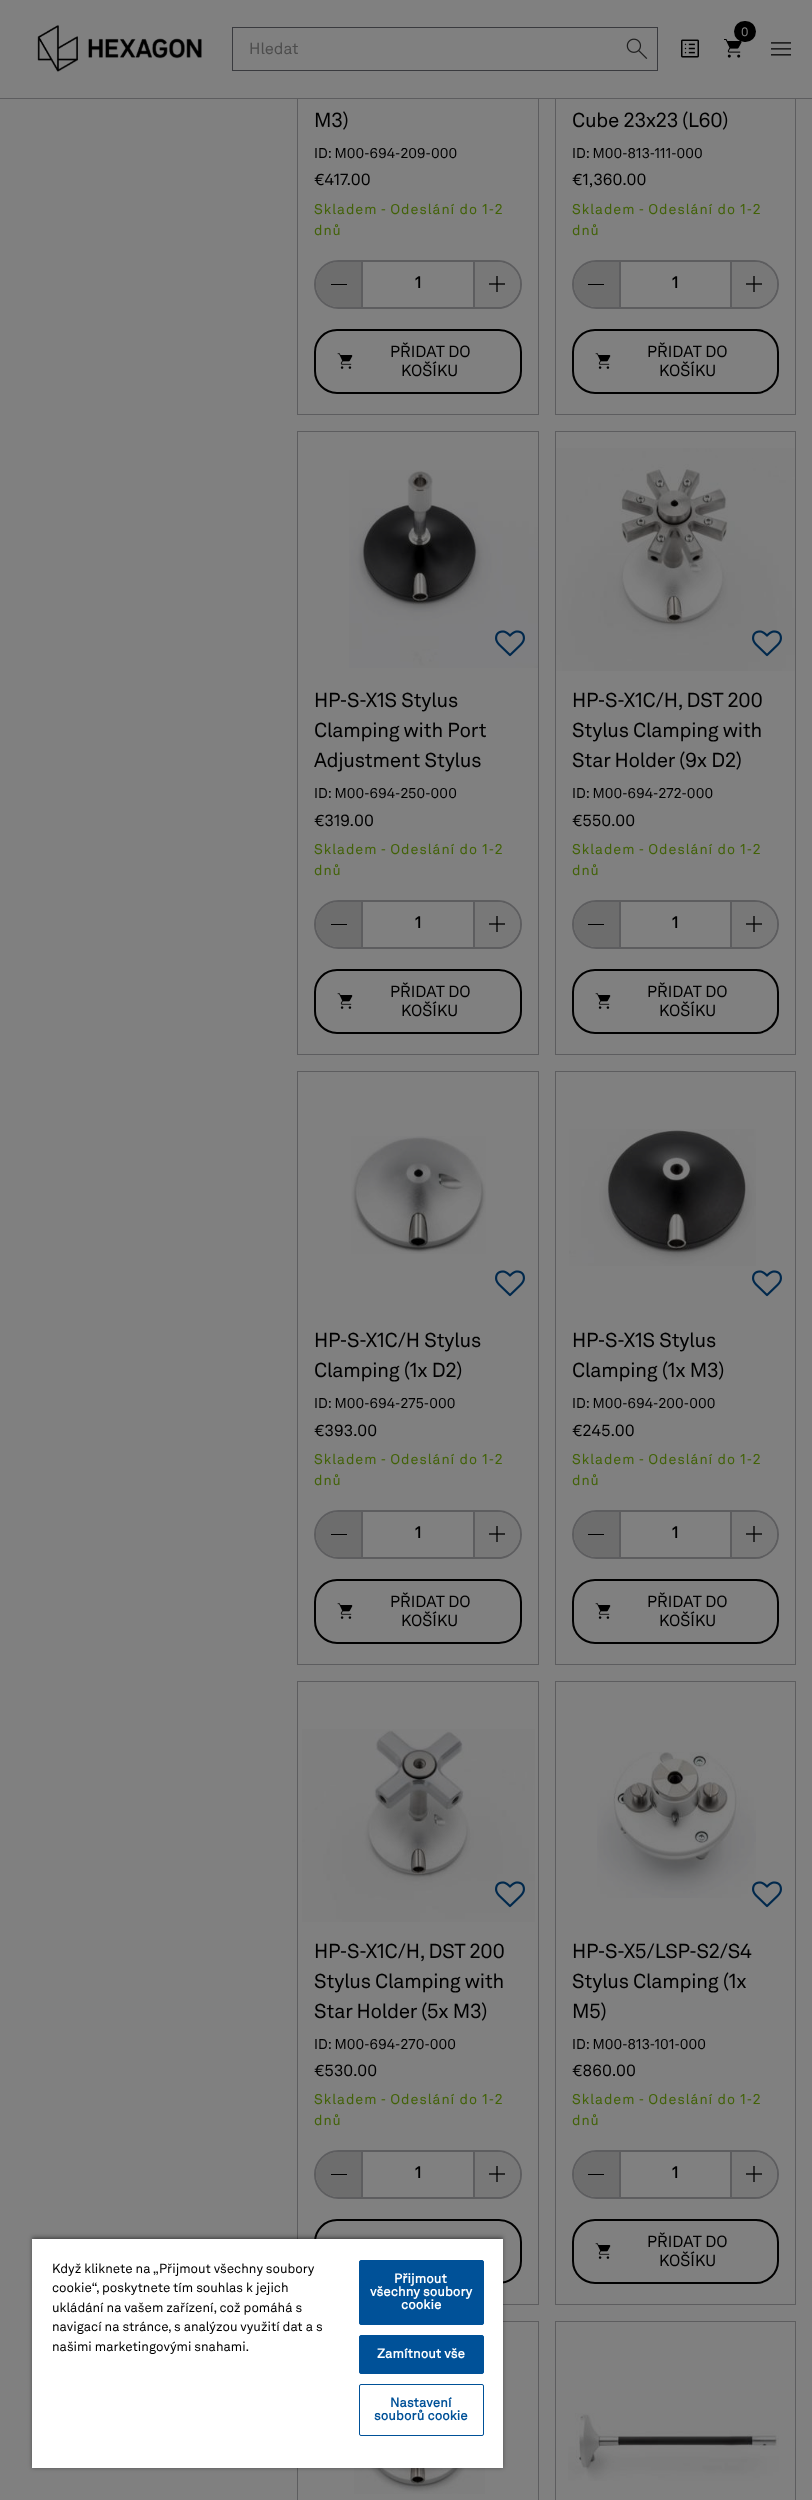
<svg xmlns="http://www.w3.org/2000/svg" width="812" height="2500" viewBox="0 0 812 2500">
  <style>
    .t1 { font: 12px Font; letter-spacing: 0.1px; fill: #808080; }
    .t2 { font: 16px Font; fill: #4d4d4d; }
    .t3 { font: 20px Font; letter-spacing: -0.25px; fill: #000; }
    .t4 { font: 14px Font; letter-spacing: 0.1px; fill: #000; }
    .t5 { font: 16px Font; letter-spacing: 0.1px; fill: #000; }
    .t6 { font: 14px Font; letter-spacing: 1px; fill: #426208; }
    .t7 { font: bold 16px Font; fill: #000; }
    .t8 { font: 16px Font; fill: #000; }
    .t9 { font: 13px Font; fill: #000; }
    .t10 { font: bold 13px Font; letter-spacing: 0.1px; fill: #fff; }
    .t11 { font: bold 13px Font; letter-spacing: 0.1px; fill: #005198; }
  </style>
  <defs>
    <clipPath id="clip1"><rect x="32" y="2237" width="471" height="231"/></clipPath>
  </defs>
  <rect width="100%" height="100%" fill="#808080"/>
  <rect x="297.5" y="-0.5" width="241" height="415" fill="none" stroke="#5d5d5f"/>
  <rect x="555.5" y="-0.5" width="240" height="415" fill="none" stroke="#5d5d5f"/>
  <rect x="0" y="98" width="812" height="1" fill="#5d5d5f"/>
  <rect x="297" y="0" width="499" height="98" fill="#808080"/>
  <image x="37" y="25" width="165" height="47" href="images/1.png"/>
  <image x="724" y="39" width="18" height="19" href="images/2.png"/>
  <rect x="734" y="21" width="22" height="21" rx="10.5" fill="#000"/>
  <text x="741" y="36" class="t1">0</text>
  <image x="681" y="39" width="18" height="19" href="images/3.png"/>
  <rect x="232.5" y="27.5" width="425" height="43" fill="none" stroke="#393a3e"/>
  <text x="249" y="54" class="t2">Hledat</text>
  <image x="626" y="38" width="22" height="21" href="images/4.png"/>
  <image x="771" y="42" width="20" height="14" href="images/5.png"/>
  <text x="314" y="127" class="t3">M3)</text>
  <text x="314" y="158" class="t4">ID: M00-694-209-000</text>
  <text x="314" y="185" class="t5">€417.00</text>
  <text x="314" y="214" class="t6">Skladem - Odeslání do 1-2</text>
  <text x="314" y="235" class="t6">dnů</text>
  <rect x="315" y="261" width="206" height="47" rx="23.5" fill="none" stroke="#5d5d5f" stroke-width="2"/>
  <path d="M338.5 262H361V307H338.5C326 307 316 297 316 284.5C316 272 326 262 338.5 262Z" fill="#6d6d6d"/>
  <rect x="331" y="284" width="16" height="1" fill="#000"/>
  <rect x="473" y="262" width="2" height="45" fill="#5d5d5f"/>
  <rect x="361" y="262" width="2" height="45" fill="#5d5d5f"/>
  <text x="415" y="288" class="t7">1</text>
  <path d="M475 262H497.5C510 262 520 272 520 284.5C520 297 510 307 497.5 307H475Z" fill="#787878"/>
  <image x="489" y="276" width="16" height="16" href="images/6.png"/>
  <rect x="315" y="330" width="206" height="63" rx="22" fill="none" stroke="#000" stroke-width="2"/>
  <image x="337" y="353" width="16" height="16" href="images/7.png"/>
  <text x="390" y="357" class="t8">PŘIDAT DO</text>
  <text x="401" y="376" class="t8">KOŠÍKU</text>
  <text x="572" y="127" class="t3">Cube 23x23 (L60)</text>
  <text x="572" y="158" class="t4">ID: M00-813-111-000</text>
  <text x="572" y="185" class="t5">€1,360.00</text>
  <text x="572" y="214" class="t6">Skladem - Odeslání do 1-2</text>
  <text x="572" y="235" class="t6">dnů</text>
  <rect x="573" y="261" width="205" height="47" rx="23.5" fill="none" stroke="#5d5d5f" stroke-width="2"/>
  <path d="M596.5 262H619V307H596.5C584 307 574 297 574 284.5C574 272 584 262 596.5 262Z" fill="#6d6d6d"/>
  <rect x="588" y="284" width="16" height="1" fill="#000"/>
  <rect x="730" y="262" width="2" height="45" fill="#5d5d5f"/>
  <rect x="619" y="262" width="2" height="45" fill="#5d5d5f"/>
  <text x="672" y="288" class="t7">1</text>
  <path d="M732 262H754.5C767 262 777 272 777 284.5C777 297 767 307 754.5 307H732Z" fill="#787878"/>
  <image x="746" y="276" width="16" height="16" href="images/6.png"/>
  <rect x="573" y="330" width="205" height="63" rx="22" fill="none" stroke="#000" stroke-width="2"/>
  <image x="595" y="353" width="16" height="16" href="images/7.png"/>
  <text x="647" y="357" class="t8">PŘIDAT DO</text>
  <text x="659" y="376" class="t8">KOŠÍKU</text>
  <rect x="297.5" y="431.5" width="241" height="623" fill="none" stroke="#5d5d5f"/>
  <image x="349" y="470" width="189" height="198" href="images/8.png"/>
  <image x="495" y="630" width="30" height="27" href="images/9.png"/>
  <text x="314" y="707" class="t3">HP-S-X1S Stylus</text>
  <text x="314" y="737" class="t3">Clamping with Port</text>
  <text x="314" y="767" class="t3">Adjustment Stylus</text>
  <text x="314" y="798" class="t4">ID: M00-694-250-000</text>
  <text x="314" y="826" class="t5">€319.00</text>
  <text x="314" y="854" class="t6">Skladem - Odeslání do 1-2</text>
  <text x="314" y="875" class="t6">dnů</text>
  <rect x="315" y="901" width="206" height="47" rx="23.5" fill="none" stroke="#5d5d5f" stroke-width="2"/>
  <path d="M338.5 902H361V947H338.5C326 947 316 937 316 924.5C316 912 326 902 338.5 902Z" fill="#6d6d6d"/>
  <rect x="331" y="924" width="16" height="1" fill="#000"/>
  <rect x="473" y="902" width="2" height="45" fill="#5d5d5f"/>
  <rect x="361" y="902" width="2" height="45" fill="#5d5d5f"/>
  <text x="415" y="928" class="t7">1</text>
  <path d="M475 902H497.5C510 902 520 912 520 924.5C520 937 510 947 497.5 947H475Z" fill="#787878"/>
  <image x="489" y="916" width="16" height="16" href="images/6.png"/>
  <rect x="315" y="970" width="206" height="63" rx="22" fill="none" stroke="#000" stroke-width="2"/>
  <image x="337" y="993" width="16" height="16" href="images/7.png"/>
  <text x="390" y="997" class="t8">PŘIDAT DO</text>
  <text x="401" y="1016" class="t8">KOŠÍKU</text>
  <rect x="555.5" y="431.5" width="240" height="623" fill="none" stroke="#5d5d5f"/>
  <image x="556" y="448" width="239" height="223" href="images/10.png"/>
  <image x="752" y="631" width="30" height="25" href="images/12.png"/>
  <image x="752" y="630" width="30" height="27" href="images/11.png"/>
  <text x="572" y="707" class="t3">HP-S-X1C/H, DST 200</text>
  <text x="572" y="737" class="t3">Stylus Clamping with</text>
  <text x="572" y="767" class="t3">Star Holder (9x D2)</text>
  <text x="572" y="798" class="t4">ID: M00-694-272-000</text>
  <text x="572" y="826" class="t5">€550.00</text>
  <text x="572" y="854" class="t6">Skladem - Odeslání do 1-2</text>
  <text x="572" y="875" class="t6">dnů</text>
  <rect x="573" y="901" width="205" height="47" rx="23.5" fill="none" stroke="#5d5d5f" stroke-width="2"/>
  <path d="M596.5 902H619V947H596.5C584 947 574 937 574 924.5C574 912 584 902 596.5 902Z" fill="#6d6d6d"/>
  <rect x="588" y="924" width="16" height="1" fill="#000"/>
  <rect x="730" y="902" width="2" height="45" fill="#5d5d5f"/>
  <rect x="619" y="902" width="2" height="45" fill="#5d5d5f"/>
  <text x="672" y="928" class="t7">1</text>
  <path d="M732 902H754.5C767 902 777 912 777 924.5C777 937 767 947 754.5 947H732Z" fill="#787878"/>
  <image x="746" y="916" width="16" height="16" href="images/6.png"/>
  <rect x="573" y="970" width="205" height="63" rx="22" fill="none" stroke="#000" stroke-width="2"/>
  <image x="595" y="993" width="16" height="16" href="images/7.png"/>
  <text x="647" y="997" class="t8">PŘIDAT DO</text>
  <text x="659" y="1016" class="t8">KOŠÍKU</text>
  <rect x="297.5" y="1071.5" width="241" height="593" fill="none" stroke="#5d5d5f"/>
  <image x="351" y="1136" width="135" height="118" href="images/13.png"/>
  <image x="495" y="1270" width="30" height="27" href="images/14.png"/>
  <text x="314" y="1347" class="t3">HP-S-X1C/H Stylus</text>
  <text x="314" y="1377" class="t3">Clamping (1x D2)</text>
  <text x="314" y="1408" class="t4">ID: M00-694-275-000</text>
  <text x="314" y="1436" class="t5">€393.00</text>
  <text x="314" y="1464" class="t6">Skladem - Odeslání do 1-2</text>
  <text x="314" y="1485" class="t6">dnů</text>
  <rect x="315" y="1511" width="206" height="47" rx="23.5" fill="none" stroke="#5d5d5f" stroke-width="2"/>
  <path d="M338.5 1512H361V1557H338.5C326 1557 316 1547 316 1534.5C316 1522 326 1512 338.5 1512Z" fill="#6d6d6d"/>
  <rect x="331" y="1534" width="16" height="1" fill="#000"/>
  <rect x="473" y="1512" width="2" height="45" fill="#5d5d5f"/>
  <rect x="361" y="1512" width="2" height="45" fill="#5d5d5f"/>
  <text x="415" y="1538" class="t7">1</text>
  <path d="M475 1512H497.5C510 1512 520 1522 520 1534.5C520 1547 510 1557 497.5 1557H475Z" fill="#787878"/>
  <image x="489" y="1526" width="16" height="16" href="images/6.png"/>
  <rect x="315" y="1580" width="206" height="63" rx="22" fill="none" stroke="#000" stroke-width="2"/>
  <image x="337" y="1603" width="16" height="16" href="images/7.png"/>
  <text x="390" y="1607" class="t8">PŘIDAT DO</text>
  <text x="401" y="1626" class="t8">KOŠÍKU</text>
  <rect x="555.5" y="1071.5" width="240" height="593" fill="none" stroke="#5d5d5f"/>
  <image x="569" y="1129" width="187" height="137" href="images/15.png"/>
  <image x="752" y="1270" width="30" height="27" href="images/14.png"/>
  <text x="572" y="1347" class="t3">HP-S-X1S Stylus</text>
  <text x="572" y="1377" class="t3">Clamping (1x M3)</text>
  <text x="572" y="1408" class="t4">ID: M00-694-200-000</text>
  <text x="572" y="1436" class="t5">€245.00</text>
  <text x="572" y="1464" class="t6">Skladem - Odeslání do 1-2</text>
  <text x="572" y="1485" class="t6">dnů</text>
  <rect x="573" y="1511" width="205" height="47" rx="23.5" fill="none" stroke="#5d5d5f" stroke-width="2"/>
  <path d="M596.5 1512H619V1557H596.5C584 1557 574 1547 574 1534.5C574 1522 584 1512 596.5 1512Z" fill="#6d6d6d"/>
  <rect x="588" y="1534" width="16" height="1" fill="#000"/>
  <rect x="730" y="1512" width="2" height="45" fill="#5d5d5f"/>
  <rect x="619" y="1512" width="2" height="45" fill="#5d5d5f"/>
  <text x="672" y="1538" class="t7">1</text>
  <path d="M732 1512H754.5C767 1512 777 1522 777 1534.5C777 1547 767 1557 754.5 1557H732Z" fill="#787878"/>
  <image x="746" y="1526" width="16" height="16" href="images/6.png"/>
  <rect x="573" y="1580" width="205" height="63" rx="22" fill="none" stroke="#000" stroke-width="2"/>
  <image x="595" y="1603" width="16" height="16" href="images/7.png"/>
  <text x="647" y="1607" class="t8">PŘIDAT DO</text>
  <text x="659" y="1626" class="t8">KOŠÍKU</text>
  <rect x="297.5" y="1681.5" width="241" height="623" fill="none" stroke="#5d5d5f"/>
  <image x="302" y="1729" width="233" height="193" href="images/16.png"/>
  <image x="495" y="1882" width="29" height="25" href="images/18.png"/>
  <image x="495" y="1881" width="30" height="27" href="images/17.png"/>
  <text x="314" y="1958" class="t3">HP-S-X1C/H, DST 200</text>
  <text x="314" y="1988" class="t3">Stylus Clamping with</text>
  <text x="314" y="2018" class="t3">Star Holder (5x M3)</text>
  <text x="314" y="2049" class="t4">ID: M00-694-270-000</text>
  <text x="314" y="2076" class="t5">€530.00</text>
  <text x="314" y="2104" class="t6">Skladem - Odeslání do 1-2</text>
  <text x="314" y="2125" class="t6">dnů</text>
  <rect x="315" y="2151" width="206" height="47" rx="23.5" fill="none" stroke="#5d5d5f" stroke-width="2"/>
  <path d="M338.5 2152H361V2197H338.5C326 2197 316 2187 316 2174.5C316 2162 326 2152 338.5 2152Z" fill="#6d6d6d"/>
  <rect x="331" y="2174" width="16" height="1" fill="#000"/>
  <rect x="473" y="2152" width="2" height="45" fill="#5d5d5f"/>
  <rect x="361" y="2152" width="2" height="45" fill="#5d5d5f"/>
  <text x="415" y="2178" class="t7">1</text>
  <path d="M475 2152H497.5C510 2152 520 2162 520 2174.5C520 2187 510 2197 497.5 2197H475Z" fill="#787878"/>
  <image x="489" y="2166" width="16" height="16" href="images/6.png"/>
  <rect x="315" y="2220" width="206" height="63" rx="22" fill="none" stroke="#000" stroke-width="2"/>
  <rect x="555.5" y="1681.5" width="240" height="623" fill="none" stroke="#5d5d5f"/>
  <image x="597" y="1752" width="159" height="146" href="images/19.png"/>
  <image x="752" y="1881" width="30" height="27" href="images/20.png"/>
  <text x="572" y="1958" class="t3">HP-S-X5/LSP-S2/S4</text>
  <text x="572" y="1988" class="t3">Stylus Clamping (1x</text>
  <text x="572" y="2018" class="t3">M5)</text>
  <text x="572" y="2049" class="t4">ID: M00-813-101-000</text>
  <text x="572" y="2076" class="t5">€860.00</text>
  <text x="572" y="2104" class="t6">Skladem - Odeslání do 1-2</text>
  <text x="572" y="2125" class="t6">dnů</text>
  <rect x="573" y="2151" width="205" height="47" rx="23.5" fill="none" stroke="#5d5d5f" stroke-width="2"/>
  <path d="M596.5 2152H619V2197H596.5C584 2197 574 2187 574 2174.5C574 2162 584 2152 596.5 2152Z" fill="#6d6d6d"/>
  <rect x="588" y="2174" width="16" height="1" fill="#000"/>
  <rect x="730" y="2152" width="2" height="45" fill="#5d5d5f"/>
  <rect x="619" y="2152" width="2" height="45" fill="#5d5d5f"/>
  <text x="672" y="2178" class="t7">1</text>
  <path d="M732 2152H754.5C767 2152 777 2162 777 2174.5C777 2187 767 2197 754.5 2197H732Z" fill="#787878"/>
  <image x="746" y="2166" width="16" height="16" href="images/6.png"/>
  <rect x="573" y="2220" width="205" height="63" rx="22" fill="none" stroke="#000" stroke-width="2"/>
  <image x="595" y="2243" width="16" height="16" href="images/7.png"/>
  <text x="647" y="2247" class="t8">PŘIDAT DO</text>
  <text x="659" y="2266" class="t8">KOŠÍKU</text>
  <rect x="297.5" y="2321.5" width="241" height="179" fill="none" stroke="#5d5d5f"/>
  <image x="354" y="2468" width="131" height="26" href="images/21.png"/>
  <rect x="555.5" y="2321.5" width="240" height="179" fill="none" stroke="#5d5d5f"/>
  <image x="568" y="2413" width="211" height="68" href="images/22.png"/>
  <rect x="32" y="2237" width="471" height="231" fill="#00000059" filter="blur(2px)"/>
  <g clip-path="url(#clip1)">
    <rect x="32" y="2239" width="471" height="229" fill="#00000033" filter="blur(2px)"/>
  </g>
  <rect x="32" y="2239" width="471" height="229" fill="#fff"/>
  <text x="52" y="2273" class="t9">Když kliknete na „Přijmout všechny soubory</text>
  <text x="52" y="2292" class="t9">cookie“, poskytnete tím souhlas k jejich</text>
  <text x="52" y="2312" class="t9">ukládání na vašem zařízení, což pomáhá s</text>
  <text x="52" y="2331" class="t9">navigací na stránce, s analýzou využití dat a s</text>
  <text x="52" y="2351" class="t9">našimi marketingovými snahami.</text>
  <rect x="359.5" y="2260.5" width="124" height="64" rx="1.5" fill="#005198" stroke="#005198"/>
  <text x="394" y="2283" class="t10">Přijmout</text>
  <text x="370" y="2296" class="t10">všechny soubory</text>
  <text x="401" y="2309" class="t10">cookie</text>
  <rect x="359.5" y="2335.5" width="124" height="38" rx="1.5" fill="#005198" stroke="#005198"/>
  <text x="377" y="2358" class="t10">Zamítnout vše</text>
  <rect x="359.5" y="2384.5" width="124" height="51" rx="1.5" fill="none" stroke="#005198"/>
  <text x="390" y="2407" class="t11">Nastavení</text>
  <text x="374" y="2420" class="t11">souborů cookie</text>
</svg>
